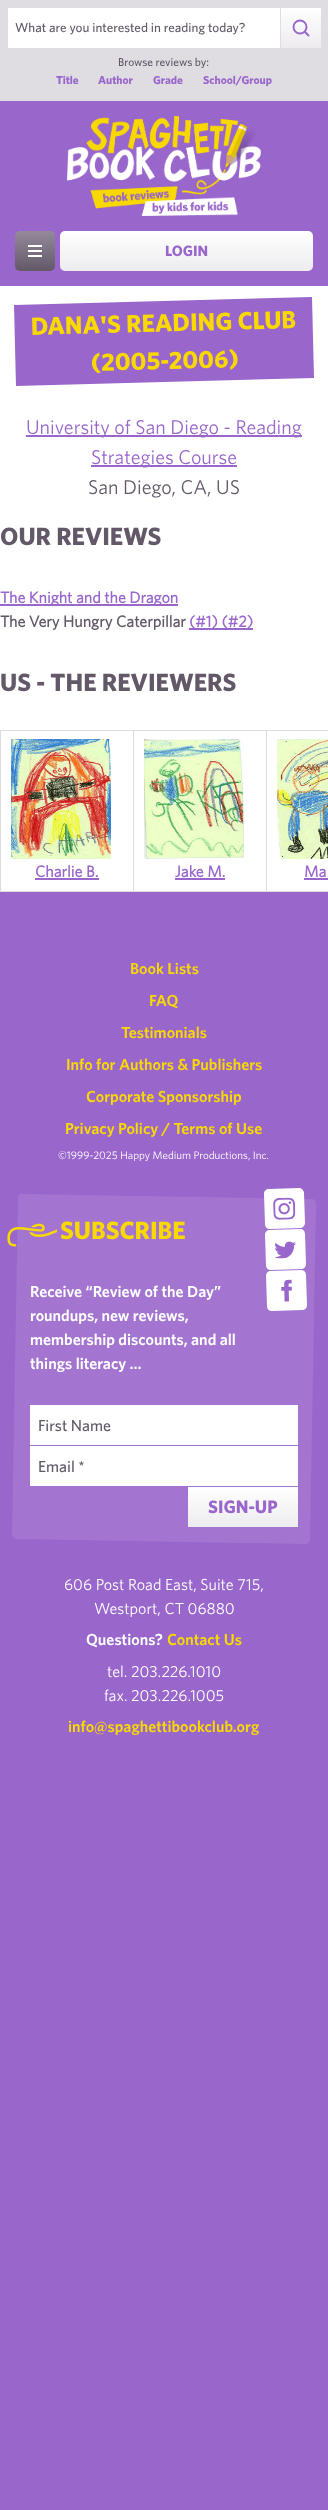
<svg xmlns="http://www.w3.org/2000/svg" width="328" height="2510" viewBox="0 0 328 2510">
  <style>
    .t1 { font: 500 13.1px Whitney; fill: #625868; }
    .t2 { font: 500 11.5px Whitney; fill: #625868; }
    .t3 { font: bold 11.5px Whitney; fill: #96c; }
    .t4 { font: bold 15px Whitney; fill: #96c; }
    .t5 { font: bold 25px Whitney; fill: #fad900; }
    .t6 { font: 20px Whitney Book; fill: #96c; }
    .t7 { font: 20px Whitney Book; fill: #625868; }
    .t8 { font: bold 25px Whitney; fill: #625868; }
    .t9 { font: bold 16px Whitney Book; fill: #96c; }
    .t10 { font: bold 16px Whitney Book; fill: #625868; }
    .t11 { font: 600 16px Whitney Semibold; fill: #fad900; }
    .t12 { font: 11px Whitney Book; fill: #fff; }
    .t13 { font: 600 16px Whitney Semibold; fill: #fff; }
    .t14 { font: 500 16px Whitney; fill: #625868; }
    .t15 { font: bold 18px Whitney; fill: #96c; }
    .t16 { font: 16px Whitney Book; fill: #fff; }
  </style>
  <defs>
    <linearGradient id="g1" gradientUnits="userSpaceOnUse" x1="282" y1="48" x2="282" y2="-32"><stop offset="0" stop-color="#edebee"/><stop offset="0.5" stop-color="#fff"/></linearGradient>
    <linearGradient id="g2" gradientUnits="userSpaceOnUse" x1="16" y1="271" x2="16" y2="191"><stop offset="0" stop-color="#625868"/><stop offset="0.5" stop-color="#958a9c"/></linearGradient>
    <linearGradient id="g3" gradientUnits="userSpaceOnUse" x1="61" y1="271" x2="61" y2="191"><stop offset="0" stop-color="#edebee"/><stop offset="0.5" stop-color="#fff"/></linearGradient>
    <linearGradient id="g4" gradientUnits="userSpaceOnUse" x1="189" y1="1527" x2="189" y2="1447"><stop offset="0" stop-color="#edebee"/><stop offset="0.5" stop-color="#fff"/></linearGradient>
  </defs>
  <rect width="100%" height="100%" fill="#96c"/>
  <rect x="0" y="0" width="328" height="101" fill="#e0dde2"/>
  <rect x="8" y="8" width="272" height="40" fill="#fff"/>
  <text x="15" y="32" class="t1">What are you interested in reading today?</text>
  <rect x="281" y="8" width="40" height="40" fill="url(#g1)"/>
  <circle cx="300" cy="27" r="6.5" fill="none" stroke="#96c" stroke-width="1.9"/>
  <path d="M308.5 35.5L305 32" fill="none" stroke="#96c" stroke-width="1.9" stroke-linecap="round" stroke-linejoin="round"/>
  <text x="118" y="66" class="t2">Browse reviews by:</text>
  <text x="56" y="84" class="t3">Title</text>
  <text x="98" y="84" class="t3">Author</text>
  <text x="153" y="84" class="t3">Grade</text>
  <text x="203" y="84" class="t3">School/Group</text>
  <image x="67" y="116" width="194" height="100" href="images/1.png"/>
  <rect x="15" y="231" width="40" height="40" rx="5" fill="url(#g2)"/>
  <rect x="28" y="245" width="14" height="2" fill="#fff"/>
  <rect x="28" y="250" width="14" height="2" fill="#fff"/>
  <rect x="28" y="255" width="14" height="2" fill="#fff"/>
  <rect x="60" y="231" width="253" height="40" rx="5" fill="url(#g3)"/>
  <text x="165" y="256" class="t4">LOGIN</text>
  <rect x="0" y="286" width="328" height="605" fill="#fff"/>
  <path d="M14 305L312 297L314 378L16 386Z" fill="#96c"/>
  <text x="31" y="335" transform="rotate(-1.5 31 335)" class="t5">DANA'S READING CLUB</text>
  <text x="91" y="371" transform="rotate(-1.5 91 371)" class="t5">(2005-2006)</text>
  <rect x="26" y="435" width="276" height="2" fill="#96c"/>
  <text x="26" y="434" class="t6">University of San Diego - Reading</text>
  <rect x="91" y="465" width="146" height="2" fill="#96c"/>
  <text x="91" y="464" class="t6">Strategies Course</text>
  <text x="88" y="494" class="t7">San Diego, CA, US</text>
  <text x="0" y="545" class="t8">OUR REVIEWS</text>
  <rect x="0" y="604" width="178" height="2" fill="#96c"/>
  <text x="0" y="603" class="t9">The Knight and the Dragon</text>
  <text x="0" y="627" class="t10">The Very Hungry Caterpillar</text>
  <rect x="189" y="628" width="64" height="2" fill="#96c"/>
  <text x="189" y="627" class="t9">(#1) (#2)</text>
  <text x="0" y="691" class="t8">US - THE REVIEWERS</text>
  <rect x="0.5" y="730.5" width="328" height="161" fill="none" stroke="#e0dde2"/>
  <image x="11" y="739" width="100" height="120" href="images/2.png"/>
  <text x="35" y="877" class="t9">Charlie B.</text>
  <rect x="35" y="878" width="64" height="2" fill="#96c"/>
  <rect x="133" y="731" width="1" height="160" fill="#e0dde2"/>
  <image x="144" y="739" width="100" height="120" href="images/3.png"/>
  <text x="175" y="877" class="t9">Jake M.</text>
  <rect x="175" y="878" width="50" height="2" fill="#96c"/>
  <rect x="266" y="731" width="1" height="160" fill="#e0dde2"/>
  <image x="277" y="739" width="51" height="120" href="images/4.png"/>
  <text x="304" y="877" class="t9">Ma</text>
  <rect x="304" y="878" width="24" height="2" fill="#96c"/>
  <text x="130" y="974" class="t11">Book Lists</text>
  <text x="149" y="1006" class="t11">FAQ</text>
  <text x="121" y="1038" class="t11">Testimonials</text>
  <text x="66" y="1070" class="t11">Info for Authors &amp; Publishers</text>
  <text x="86" y="1102" class="t11">Corporate Sponsorship</text>
  <text x="65" y="1134" class="t11">Privacy Policy / Terms of Use</text>
  <text x="58" y="1159" class="t12">©1999-2025 Happy Medium Productions, Inc.</text>
  <path d="M23 1194L311 1199C314 1199 316 1201 316 1204L310 1539C310 1542 308 1544 305 1544L17 1539C14 1539 12 1537 12 1534L18 1198C18 1196 20 1193 23 1194Z" fill="#a375d1"/>
  <image x="7" y="1223" width="50" height="24" href="images/5.png"/>
  <text x="60" y="1239" class="t5">SUBSCRIBE</text>
  <text x="30" y="1297" class="t13">Receive “Review of the Day”</text>
  <text x="30" y="1321" class="t13">roundups, new reviews,</text>
  <text x="30" y="1345" class="t13">membership discounts, and all</text>
  <text x="30" y="1369" class="t13">things literacy …</text>
  <rect x="30" y="1405" width="268" height="40" fill="#fff"/>
  <text x="38" y="1431" class="t14">First Name</text>
  <rect x="30" y="1446" width="268" height="40" fill="#fff"/>
  <text x="38" y="1472" class="t14">Email *</text>
  <rect x="188" y="1487" width="110" height="40" fill="url(#g4)"/>
  <text x="208" y="1513" class="t15">SIGN-UP</text>
  <path d="M269 1189L299 1188C301 1188 304 1190 304 1193L305 1223C305 1226 302 1228 300 1228L270 1229C267 1229 265 1227 265 1224L264 1194C264 1191 266 1189 269 1189Z" fill="#fff"/>
  <image x="273" y="1197" width="23" height="23" href="images/6.png"/>
  <path d="M270 1230L300 1229C303 1229 305 1231 305 1234L306 1264C306 1267 304 1269 301 1269L271 1270C268 1270 266 1268 266 1265L265 1235C265 1232 267 1230 270 1230Z" fill="#fff"/>
  <image x="274" y="1241" width="22" height="18" href="images/7.png"/>
  <path d="M271 1271L301 1270C304 1270 306 1272 306 1275L307 1305C307 1308 305 1310 302 1310L272 1311C269 1311 267 1309 267 1306L266 1276C266 1273 268 1271 271 1271Z" fill="#fff"/>
  <image x="281" y="1279" width="11" height="23" href="images/8.png"/>
  <text x="64" y="1590" class="t16">606 Post Road East, Suite 715,</text>
  <text x="94" y="1614" class="t16">Westport, CT 06880</text>
  <text x="86" y="1645" class="t13">Questions?</text>
  <text x="167" y="1645" class="t11">Contact Us</text>
  <text x="107" y="1677" class="t16">tel. 203.226.1010</text>
  <text x="104" y="1701" class="t16">fax. 203.226.1005</text>
  <text x="68" y="1732" class="t11">info@spaghettibookclub.org</text>
</svg>
